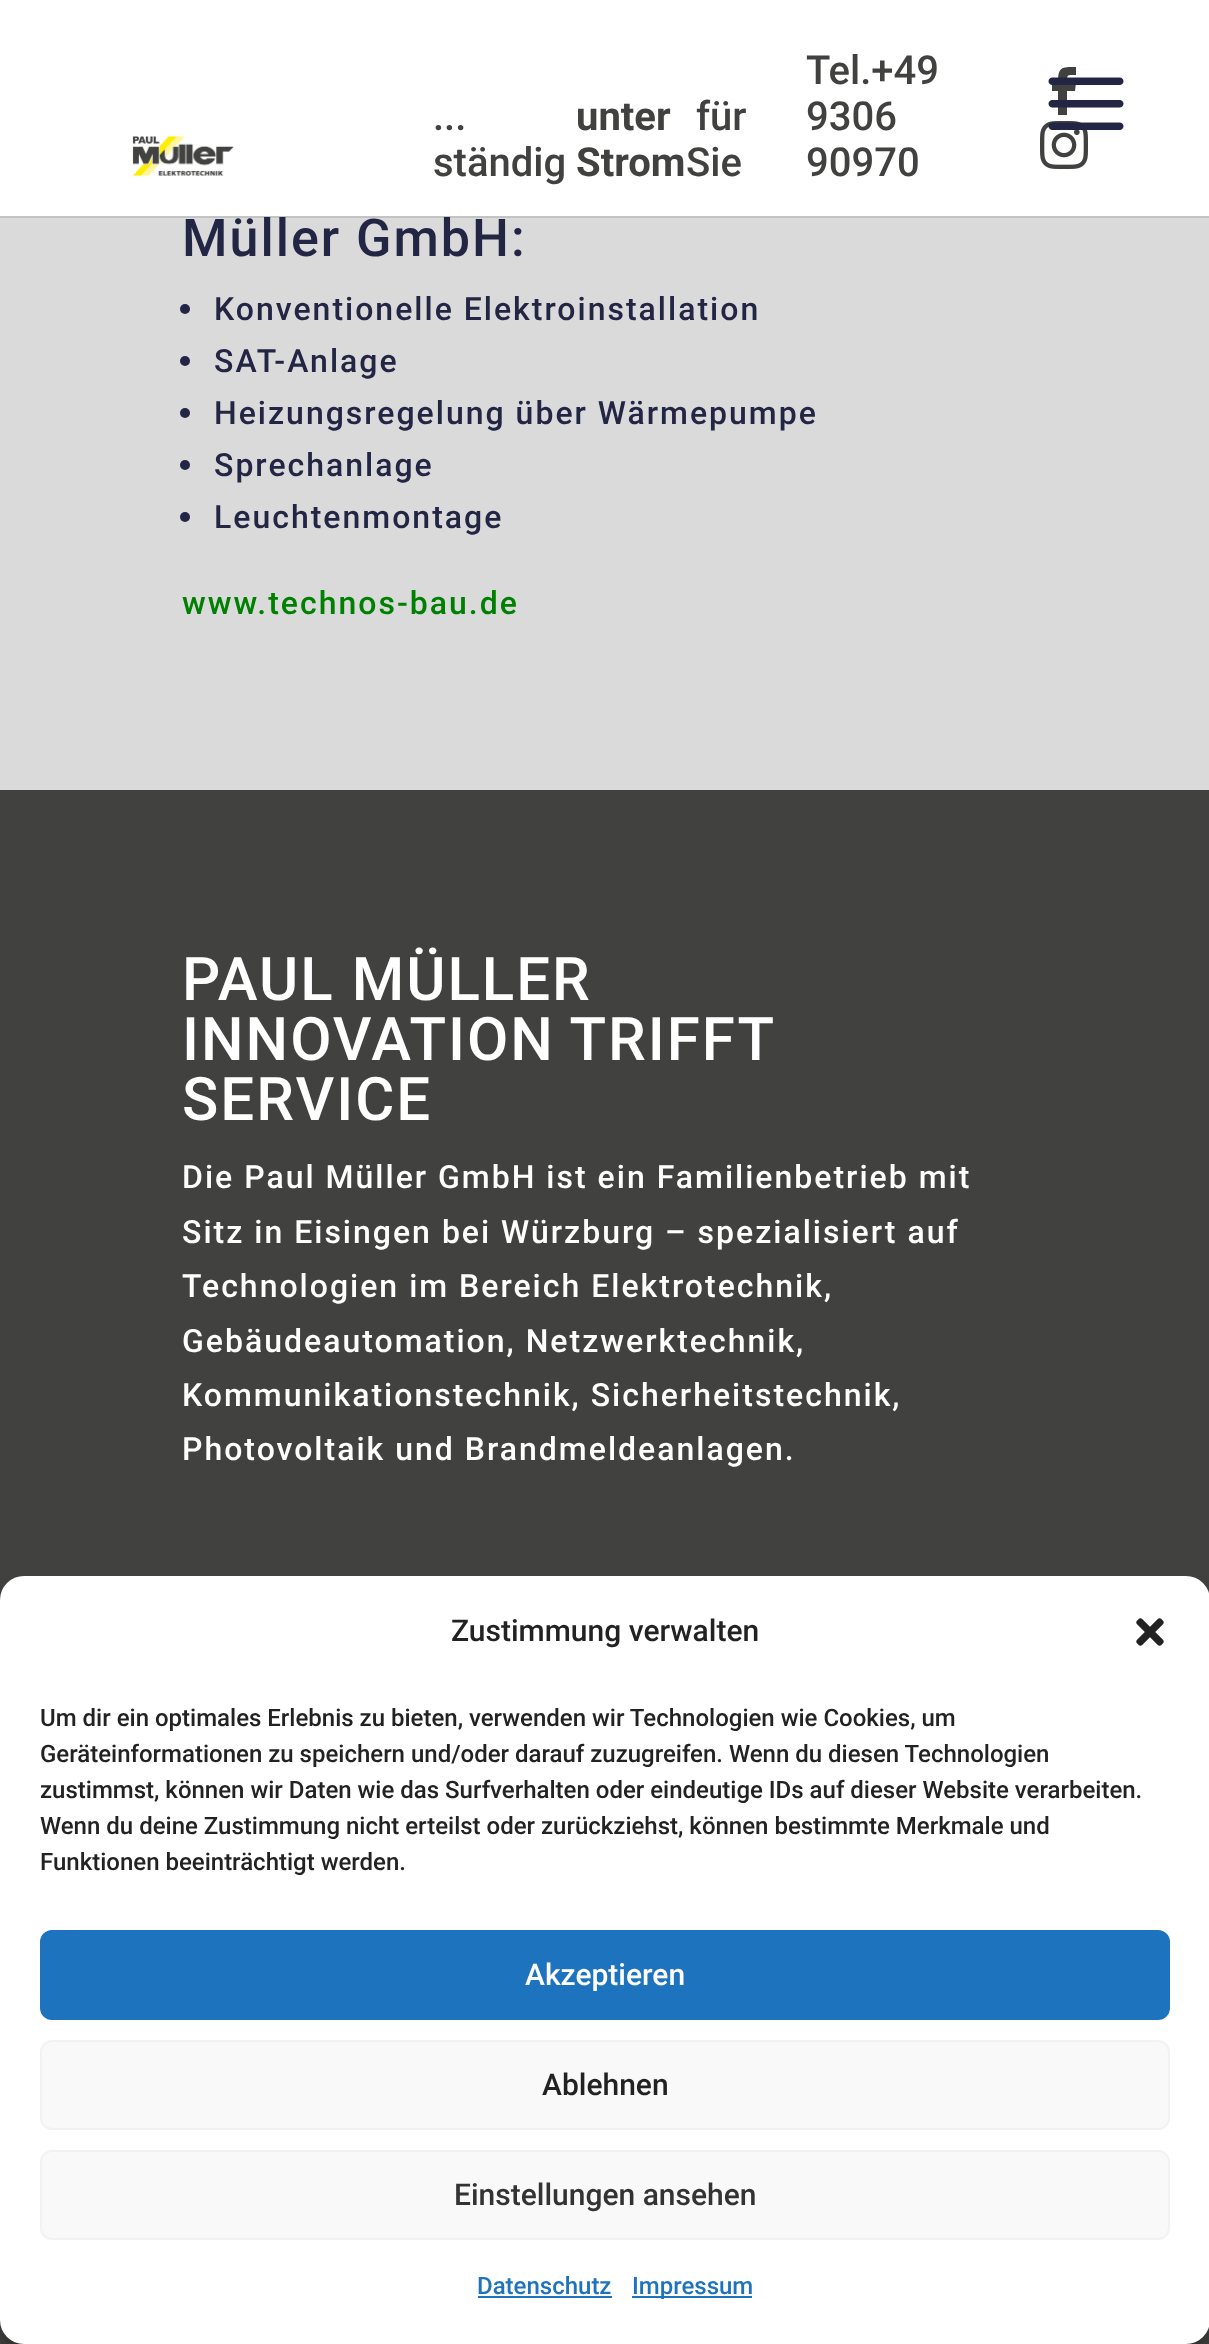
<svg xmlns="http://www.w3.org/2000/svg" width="1209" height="2344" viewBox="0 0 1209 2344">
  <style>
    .t1 { font: 500 40px Roboto; fill: #414140; }
    .t2 { font: bold 40px Roboto; fill: #414140; }
    .t3 { font: 500 52px Roboto; letter-spacing: 2px; fill: #222544; }
    .t4 { font: 500 32px Roboto; letter-spacing: 2px; fill: #222544; }
    .t5 { font: 500 32px Roboto; letter-spacing: 2px; fill: #008000; }
    .t6 { font: 500 60px Roboto; letter-spacing: 2px; fill: #fff; }
    .t7 { font: 500 32px Roboto; letter-spacing: 2px; fill: #fff; }
    .t8 { font: 500 30px Roboto; fill: #222; }
    .t9 { font: 500 24px Roboto; fill: #222; }
    .t10 { font: 500 30px Roboto; fill: #fff; }
    .t11 { font: 500 30px Roboto; fill: #333; }
    .t12 { font: 500 24px Roboto; fill: #1e73be; }
  </style>
  <rect width="100%" height="100%" fill="#dadada"/>
  <rect x="0" y="216" width="1209" height="2" fill="#0000001a"/>
  <rect x="0" y="0" width="1209" height="216" fill="#fff"/>
  <image x="132" y="136" width="102" height="40" href="images/1.png"/>
  <text x="433" y="130" class="t1">...</text>
  <text x="576" y="130" class="t2">unter</text>
  <text x="576" y="176" class="t2">Strom</text>
  <text x="696" y="130" class="t1">für</text>
  <text x="433" y="176" class="t1">ständig</text>
  <text x="686" y="176" class="t1">Sie</text>
  <text x="806" y="84" class="t1">Tel.+49</text>
  <text x="806" y="130" class="t1">9306</text>
  <text x="806" y="176" class="t1">90970</text>
  <path d="M1058 115H1067V91H1075L1076 83H1067C1067 74 1067 75 1076 75V67C1061 67 1058 67 1058 83H1052V91H1058Z" fill="#414140"/>
  <image x="1040" y="121" width="48" height="48" href="images/2.png"/>
  <image x="1048" y="77" width="76" height="53" href="images/3.png"/>
  <text x="182" y="256" class="t3">Müller GmbH:</text>
  <circle cx="185" cy="309" r="5" fill="#222544"/>
  <text x="214" y="320" class="t4">Konventionelle Elektroinstallation</text>
  <circle cx="185" cy="361" r="5" fill="#222544"/>
  <text x="214" y="372" class="t4">SAT-Anlage</text>
  <circle cx="185" cy="413" r="5" fill="#222544"/>
  <text x="214" y="424" class="t4">Heizungsregelung über Wärmepumpe</text>
  <circle cx="185" cy="465" r="5" fill="#222544"/>
  <text x="214" y="476" class="t4">Sprechanlage</text>
  <circle cx="185" cy="517" r="5" fill="#222544"/>
  <text x="214" y="528" class="t4">Leuchtenmontage</text>
  <text x="182" y="614" class="t5">www.technos-bau.de</text>
  <rect x="0" y="790" width="1209" height="1554" fill="#414140"/>
  <text x="182" y="1000" class="t6">PAUL MÜLLER</text>
  <text x="182" y="1060" word-spacing="-1" class="t6">INNOVATION TRIFFT</text>
  <text x="182" y="1120" class="t6">SERVICE</text>
  <text x="182" y="1188" class="t7">Die Paul Müller GmbH ist ein Familienbetrieb mit</text>
  <text x="182" y="1243" class="t7">Sitz in Eisingen bei Würzburg – spezialisiert auf</text>
  <text x="182" y="1297" class="t7">Technologien im Bereich Elektrotechnik,</text>
  <text x="182" y="1352" class="t7">Gebäudeautomation, Netzwerktechnik,</text>
  <text x="182" y="1406" class="t7">Kommunikationstechnik, Sicherheitstechnik,</text>
  <text x="182" y="1460" class="t7">Photovoltaik und Brandmeldeanlagen.</text>
  <rect x="0" y="1588" width="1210" height="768" rx="24" fill="#0000003b" filter="blur(6px)"/>
  <rect x="0" y="1576" width="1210" height="768" rx="24" fill="#fff"/>
  <text x="451" y="1641" class="t8">Zustimmung verwalten</text>
  <image x="1136" y="1618" width="28" height="28" href="images/4.png"/>
  <text x="40" y="1726" class="t9">Um dir ein optimales Erlebnis zu bieten, verwenden wir Technologien wie Cookies, um</text>
  <text x="40" y="1762" class="t9">Geräteinformationen zu speichern und/oder darauf zuzugreifen. Wenn du diesen Technologien</text>
  <text x="40" y="1798" class="t9">zustimmst, können wir Daten wie das Surfverhalten oder eindeutige IDs auf dieser Website verarbeiten.</text>
  <text x="40" y="1834" class="t9">Wenn du deine Zustimmung nicht erteilst oder zurückziehst, können bestimmte Merkmale und</text>
  <text x="40" y="1870" class="t9">Funktionen beeinträchtigt werden.</text>
  <rect x="41" y="1931" width="1128" height="88" rx="11" fill="#1e73be" stroke="#1e73be" stroke-width="2"/>
  <text x="525" y="1985" class="t10">Akzeptieren</text>
  <rect x="41" y="2041" width="1128" height="88" rx="11" fill="#f9f9f9" stroke="#f2f2f2" stroke-width="2"/>
  <text x="542" y="2095" class="t8">Ablehnen</text>
  <rect x="41" y="2151" width="1128" height="88" rx="11" fill="#f9f9f9" stroke="#f2f2f2" stroke-width="2"/>
  <text x="454" y="2205" class="t11">Einstellungen ansehen</text>
  <text x="477" y="2294" class="t12">Datenschutz</text>
  <rect x="478" y="2296" width="134" height="2" fill="#1e73be"/>
  <rect x="632" y="2296" width="120" height="2" fill="#1e73be"/>
  <text x="632" y="2294" class="t12">Impressum</text>
</svg>
